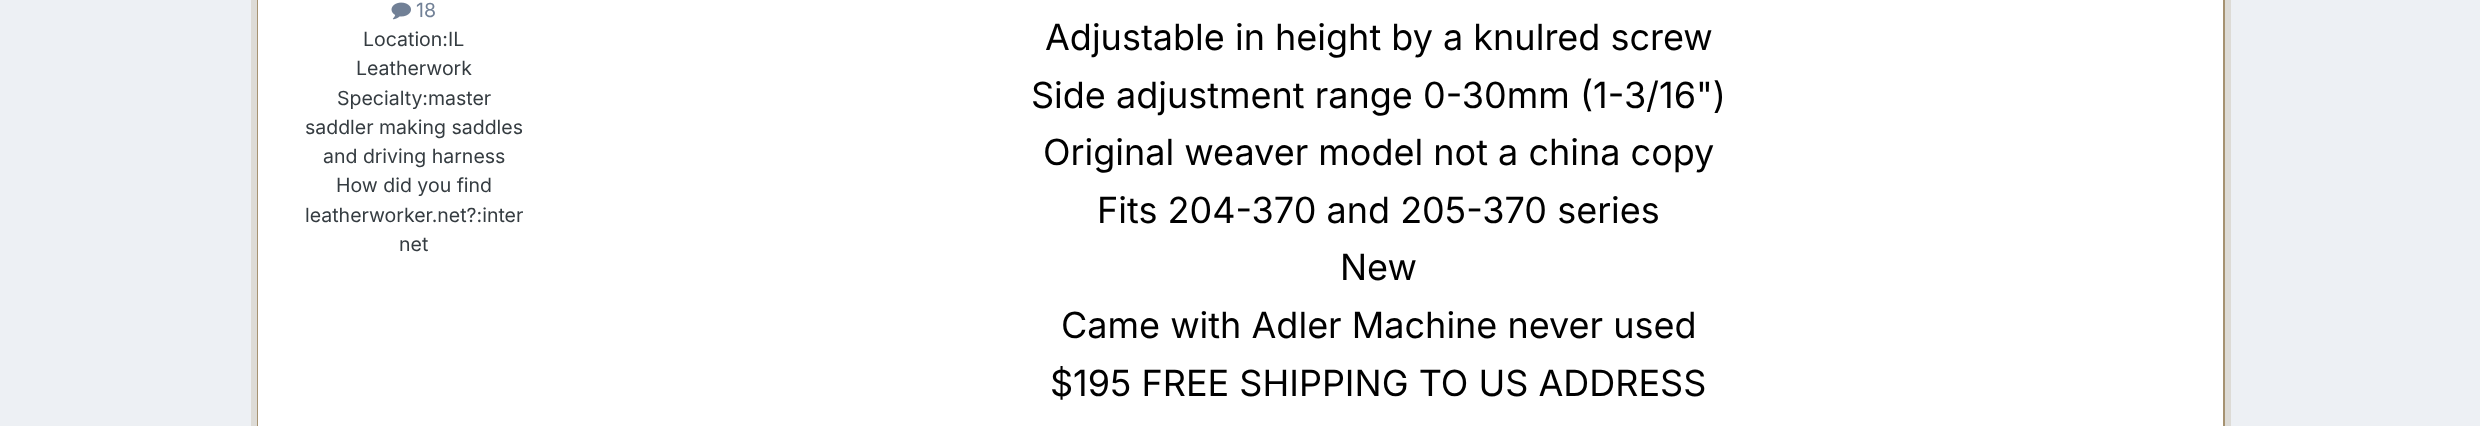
<svg xmlns="http://www.w3.org/2000/svg" width="2480" height="426" viewBox="0 0 2480 426">
  <style>
    .t1 { font: 19.5px Inter; fill: #718096; }
    .t2 { font: 19.5px Inter; fill: #353c41; }
    .t3 { font: 36px Inter; fill: #000; }
  </style>
  <rect width="100%" height="100%" fill="#edf0f4"/>
  <rect x="255" y="-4" width="1972" height="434" fill="none" stroke="#dddbd6" stroke-width="8"/>
  <rect x="258" y="-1" width="1966" height="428" fill="none" stroke="#a69271" stroke-width="2"/>
  <rect x="258" y="0" width="1965" height="426" fill="#fff"/>
  <image x="391" y="2" width="20" height="18" href="images/1.png"/>
  <text x="416" y="17" class="t1">18</text>
  <text x="363" y="46" class="t2">Location:IL</text>
  <text x="356" y="75" class="t2">Leatherwork</text>
  <text x="337" y="105" class="t2">Specialty:master</text>
  <text x="305" y="134" class="t2">saddler making saddles</text>
  <text x="323" y="163" class="t2">and driving harness</text>
  <text x="336" y="192" class="t2">How did you find</text>
  <text x="305" y="222" class="t2">leatherworker.net?:inter</text>
  <text x="399" y="251" class="t2">net</text>
  <text x="1045" y="50" class="t3">Adjustable in height by a knulred screw</text>
  <text x="1031" y="108" class="t3">Side adjustment range 0-30mm (1-3/16")</text>
  <text x="1043" y="165" class="t3">Original weaver model not a china copy</text>
  <text x="1097" y="223" class="t3">Fits 204-370 and 205-370 series</text>
  <text x="1340" y="280" class="t3">New</text>
  <text x="1061" y="338" class="t3">Came with Adler Machine never used</text>
  <text x="1050" y="396" class="t3">$195 FREE SHIPPING TO US ADDRESS</text>
</svg>
